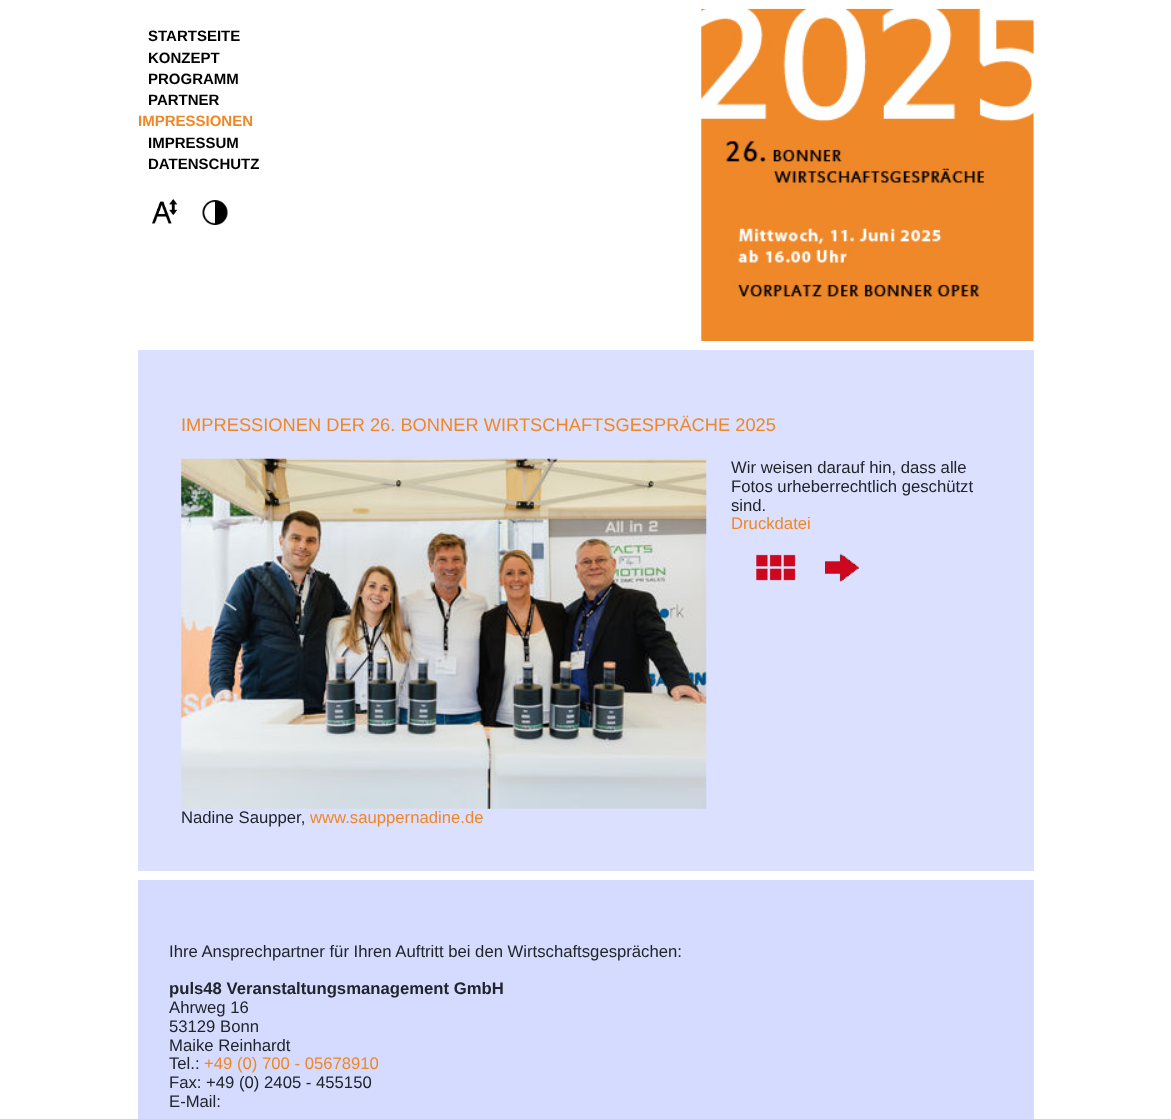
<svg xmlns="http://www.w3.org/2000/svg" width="1171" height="1119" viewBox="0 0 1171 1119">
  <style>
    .t1 { font: bold 15px Liberation Sans; fill: #000; }
    .t2 { font: bold 15px Liberation Sans; fill: #f08726; }
    .t3 { font: 18.3px Liberation Sans; fill: #f08726; }
    .t4 { font: 16.7px Liberation Sans; fill: #212529; }
    .t5 { font: 16.7px Liberation Sans; fill: #f08726; }
    .t6 { font: bold 16.7px Liberation Sans; fill: #212529; }
  </style>
  <rect width="100%" height="100%" fill="#fff"/>
  <text x="148" y="41" class="t1">STARTSEITE</text>
  <text x="148" y="63" class="t1">KONZEPT</text>
  <text x="148" y="84" class="t1">PROGRAMM</text>
  <text x="148" y="105" class="t1">PARTNER</text>
  <text x="138" y="126" class="t2">IMPRESSIONEN</text>
  <text x="148" y="148" class="t1">IMPRESSUM</text>
  <text x="148" y="169" class="t1">DATENSCHUTZ</text>
  <image x="152" y="199" width="26" height="25" href="images/1.png"/>
  <image x="202" y="200" width="26" height="25" href="images/2.png"/>
  <image x="701" y="8" width="333" height="334" href="images/3.png"/>
  <rect x="138" y="350" width="896" height="521" fill="#dae0fe"/>
  <text x="181" y="431" class="t3">IMPRESSIONEN DER 26. BONNER WIRTSCHAFTSGESPRÄCHE 2025</text>
  <image x="181" y="458" width="526" height="351" href="images/4.png"/>
  <text x="731" y="473" class="t4">Wir weisen darauf hin, dass alle</text>
  <text x="731" y="492" class="t4">Fotos urheberrechtlich geschützt</text>
  <text x="731" y="511" class="t4">sind.</text>
  <text x="731" y="529" class="t5">Druckdatei</text>
  <image x="756" y="554" width="40" height="27" href="images/5.png"/>
  <image x="825" y="553" width="34" height="29" href="images/6.png"/>
  <text x="181" y="823" class="t4">Nadine Saupper,</text>
  <text x="310" y="823" class="t5">www.sauppernadine.de</text>
  <rect x="138" y="880" width="896" height="239" fill="#d4dbfe"/>
  <text x="169" y="957" class="t4">Ihre Ansprechpartner für Ihren Auftritt bei den Wirtschaftsgesprächen:</text>
  <text x="169" y="994" class="t6">puls48 Veranstaltungsmanagement GmbH</text>
  <text x="169" y="1013" class="t4">Ahrweg 16</text>
  <text x="169" y="1032" class="t4">53129 Bonn</text>
  <text x="169" y="1051" class="t4">Maike Reinhardt</text>
  <text x="169" y="1069" class="t4">Tel.:</text>
  <text x="204" y="1069" class="t5">+49 (0) 700 - 05678910</text>
  <text x="169" y="1088" class="t4">Fax: +49 (0) 2405 - 455150</text>
  <text x="169" y="1107" class="t4">E-Mail:</text>
</svg>
